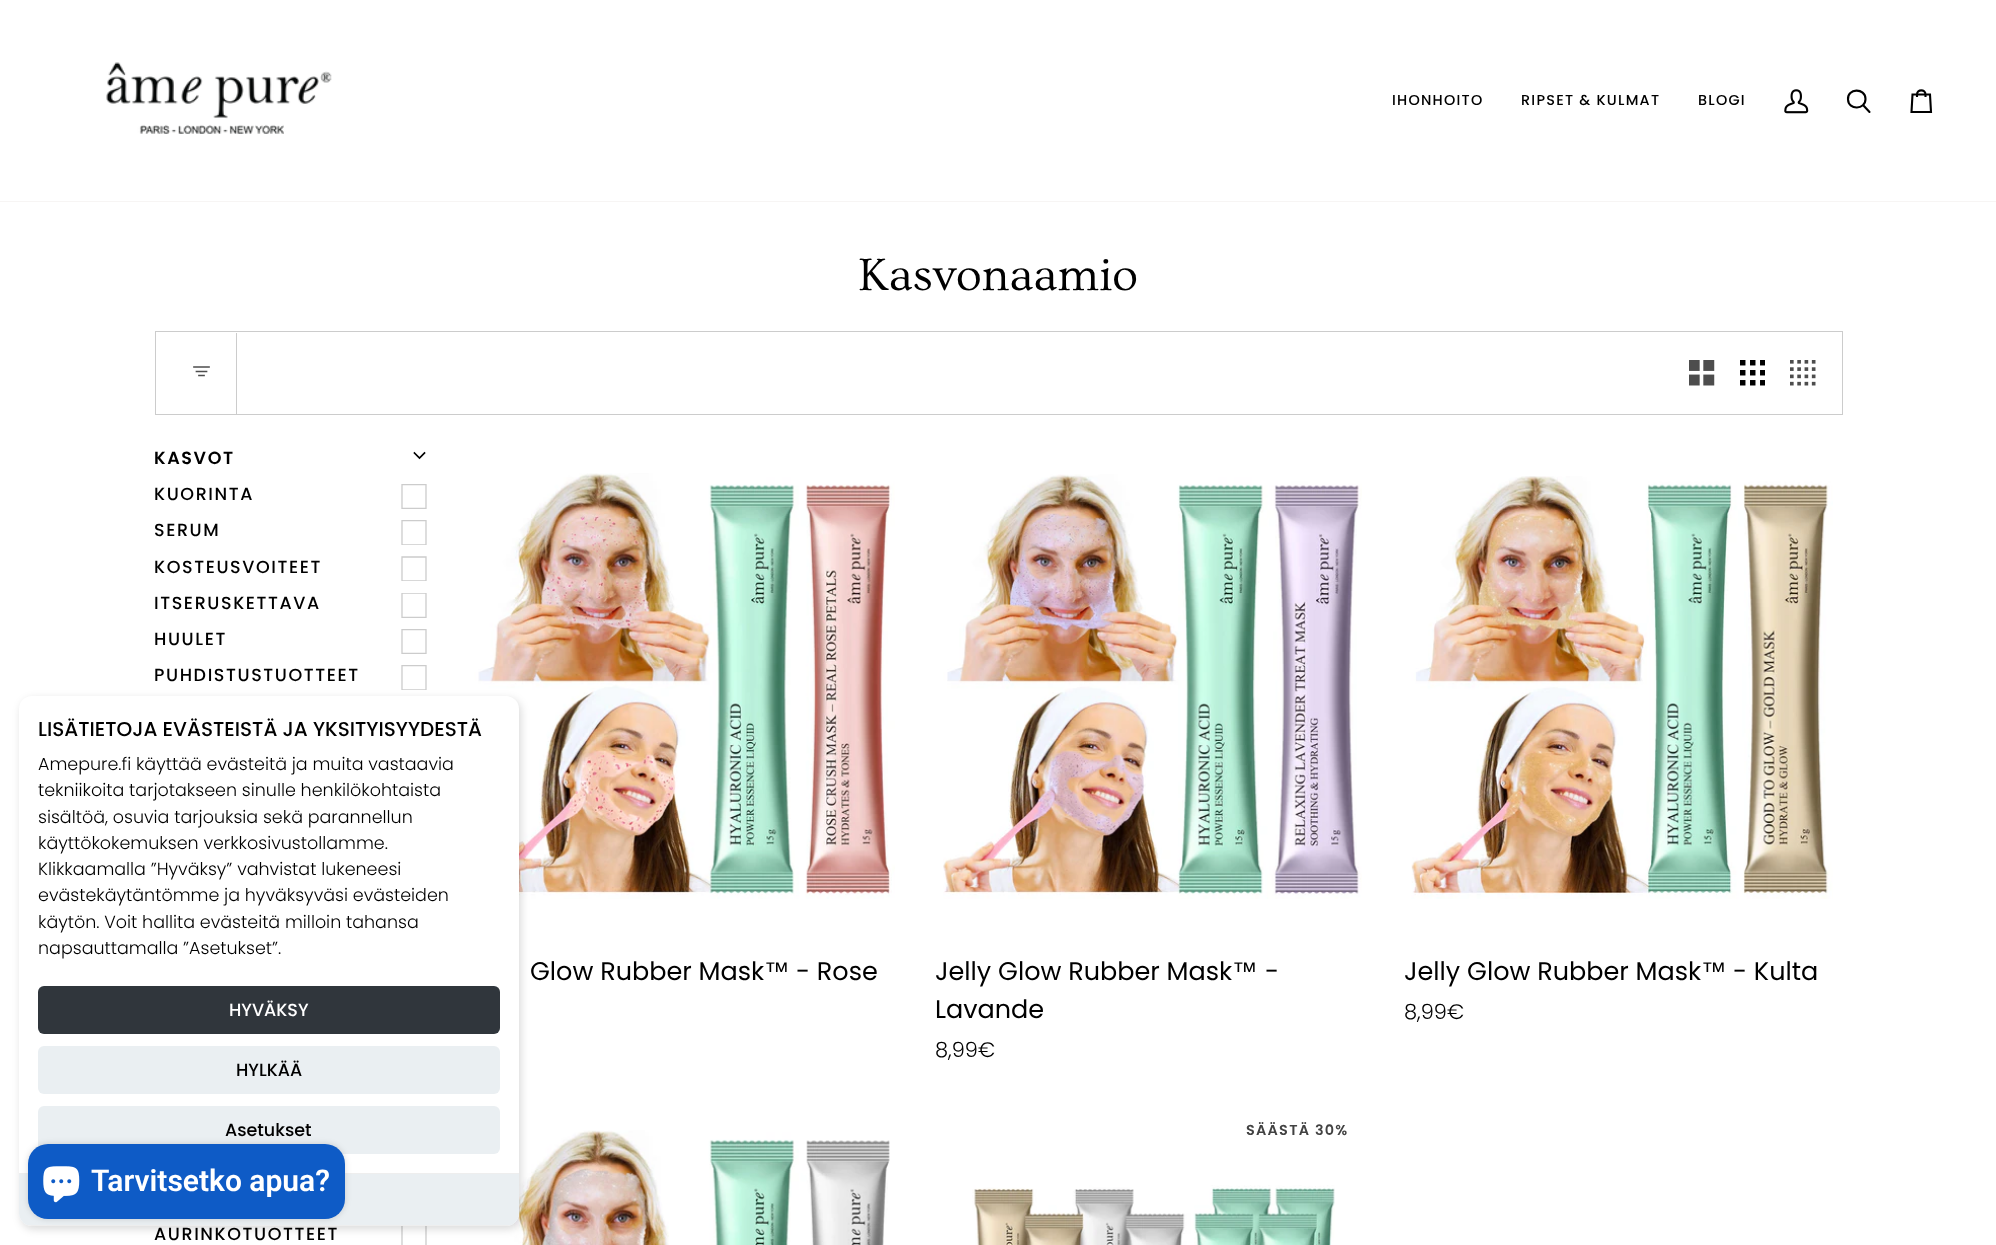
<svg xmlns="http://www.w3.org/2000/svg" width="1996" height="1245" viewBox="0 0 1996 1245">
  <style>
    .t1 { font: 500 14.4px Poppins; letter-spacing: 1.25px; fill: #000; }
    .t2 { font: 47.5px Ovo; fill: #000; }
    .t3 { font: 600 17.5px Poppins; letter-spacing: 1.6px; fill: #000; }
    .t4 { font: 500 17.5px Poppins; letter-spacing: 1.6px; fill: #000; }
    .t5 { font: 25.5px Poppins; fill: #000; }
    .t6 { font: 25.5px Liberation Sans; fill: #000; }
    .t7 { font: 300 21px Poppins; fill: #000; }
    .t8 { font: 600 14.4px Poppins; letter-spacing: 1.25px; fill: #424242; }
    .t9 { font: 500 20px Poppins; fill: #000; }
    .t10 { font: 300 17.5px Poppins; fill: #000; }
    .t11 { font: 500 17.5px Poppins; fill: #fff; }
    .t12 { font: 500 17.5px Poppins; fill: #000; }
    .t13 { font: 600 30px Roboto; fill: #fff; }
  </style>
  <defs>
    <clipPath id="clip1"><rect x="401" y="484" width="27" height="25"/></clipPath>
    <clipPath id="clip2"><rect x="401" y="520" width="27" height="25"/></clipPath>
    <clipPath id="clip3"><rect x="401" y="556" width="27" height="25"/></clipPath>
    <clipPath id="clip4"><rect x="401" y="593" width="27" height="25"/></clipPath>
    <clipPath id="clip5"><rect x="401" y="629" width="27" height="25"/></clipPath>
    <clipPath id="clip6"><rect x="401" y="665" width="27" height="25"/></clipPath>
    <clipPath id="clip7"><rect x="19" y="696" width="500" height="530" rx="13"/></clipPath>
  </defs>
  <rect width="100%" height="100%" fill="#fff"/>
  <rect x="0" y="201" width="1996" height="1" fill="#f7f5f4"/>
  <image x="106" y="62" width="226" height="72" href="images/1.png"/>
  <text x="1392" y="105" class="t1">IHONHOITO</text>
  <text x="1521" y="105" class="t1">RIPSET &amp; KULMAT</text>
  <text x="1698" y="105" class="t1">BLOGI</text>
  <image x="1784" y="89" width="25" height="25" href="images/2.png"/>
  <path d="M1865.5 99C1865.5 110 1848.5 110.5 1848 99.5C1847 88 1865.5 87.5 1865.5 99ZM1869.5 112L1863 105Z" fill="none" stroke="#000" stroke-width="2.1" stroke-linecap="round" stroke-linejoin="round"/>
  <path d="M1925.5 97V94.5H1930L1931 112H1911.5L1912.5 94.5H1917C1917 89 1925.5 89 1925.5 94.5H1917V97" fill="none" stroke="#000" stroke-width="2.1"/>
  <text x="858" y="290" class="t2">Kasvonaamio</text>
  <rect x="155.5" y="331.5" width="1687" height="83" fill="none" stroke="#ccc"/>
  <rect x="236" y="333" width="1" height="81" fill="#ccc"/>
  <path d="M209 367H194M206.5 371.5H196.5M204 375.5H199" fill="none" stroke="#4d4d4d" stroke-width="1.7" stroke-linecap="square"/>
  <image x="1689" y="360" width="26" height="26" href="images/3.png"/>
  <image x="1740" y="360" width="25" height="26" href="images/4.png"/>
  <image x="1790" y="360" width="26" height="26" href="images/5.png"/>
  <text x="154" y="464" class="t3">KASVOT</text>
  <path d="M414.5 453L419.5 458L424.5 453" fill="none" stroke="#000" stroke-width="1.7" stroke-linecap="square"/>
  <text x="154" y="500" class="t4">KUORINTA</text>
  <g clip-path="url(#clip1)">
    <path d="M402 484.5H426V508.5H402Z" fill="none" stroke="#ccc" stroke-width="1.3"/>
  </g>
  <text x="154" y="536" class="t4">SERUM</text>
  <g clip-path="url(#clip2)">
    <path d="M402 520.5H426V545H402Z" fill="none" stroke="#ccc" stroke-width="1.3"/>
  </g>
  <text x="154" y="573" class="t4">KOSTEUSVOITEET</text>
  <g clip-path="url(#clip3)">
    <path d="M402 557H426V581H402Z" fill="none" stroke="#ccc" stroke-width="1.3"/>
  </g>
  <text x="154" y="609" class="t4">ITSERUSKETTAVA</text>
  <g clip-path="url(#clip4)">
    <path d="M402 593H426V617.5H402Z" fill="none" stroke="#ccc" stroke-width="1.3"/>
  </g>
  <text x="154" y="645" class="t4">HUULET</text>
  <g clip-path="url(#clip5)">
    <path d="M402 629.5H426V653.5H402Z" fill="none" stroke="#ccc" stroke-width="1.3"/>
  </g>
  <text x="154" y="681" class="t4">PUHDISTUSTUOTTEET</text>
  <g clip-path="url(#clip6)">
    <path d="M402 665.5H426V690H402Z" fill="none" stroke="#ccc" stroke-width="1.3"/>
  </g>
  <text x="154" y="1240" class="t4">AURINKOTUOTTEET</text>
  <path d="M402 1224.5H426V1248.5H402Z" fill="none" stroke="#ccc" stroke-width="1.3"/>
  <image x="474" y="473" width="421" height="426" href="images/6.png"/>
  <text x="530" y="980" class="t5">Glow Rubber Mask</text>
  <text x="764" y="980" class="t6">™</text>
  <text x="796" y="980" class="t5">- Rose</text>
  <image x="943" y="474" width="419" height="425" href="images/7.png"/>
  <text x="935" y="980" class="t5">Jelly Glow Rubber Mask</text>
  <text x="1232" y="980" class="t6">™</text>
  <text x="1265" y="980" class="t5">-</text>
  <text x="935" y="1018" class="t5">Lavande</text>
  <text x="935" y="1057" class="t7">8,99€</text>
  <image x="1411" y="476" width="422" height="423" href="images/8.png"/>
  <text x="1404" y="980" class="t5">Jelly Glow Rubber Mask</text>
  <text x="1701" y="980" class="t6">™</text>
  <text x="1733" y="980" class="t5">- Kulta</text>
  <text x="1404" y="1019" class="t7">8,99€</text>
  <image x="514" y="1130" width="376" height="115" href="images/9.png"/>
  <text x="1246" y="1135" class="t8">SÄÄSTÄ 30%</text>
  <image x="972" y="1185" width="363" height="60" href="images/10.png"/>
  <rect x="21" y="699" width="500" height="530" rx="13" fill="#00000026" filter="blur(4px)"/>
  <rect x="19" y="696" width="500" height="530" rx="13" fill="#fff"/>
  <text x="38" y="736" class="t9">LISÄTIETOJA EVÄSTEISTÄ JA YKSITYISYYDESTÄ</text>
  <text x="38" y="770" class="t10">Amepure.fi käyttää evästeitä ja muita vastaavia</text>
  <text x="38" y="796" class="t10">tekniikoita tarjotakseen sinulle henkilökohtaista</text>
  <text x="38" y="823" class="t10">sisältöä, osuvia tarjouksia sekä parannellun</text>
  <text x="38" y="849" class="t10">käyttökokemuksen verkkosivustollamme.</text>
  <text x="38" y="875" class="t10">Klikkaamalla ”Hyväksy” vahvistat lukeneesi</text>
  <text x="38" y="901" class="t10">evästekäytäntömme ja hyväksyväsi evästeiden</text>
  <text x="38" y="928" class="t10">käytön. Voit hallita evästeitä milloin tahansa</text>
  <text x="38" y="954" class="t10">napsauttamalla ”Asetukset”.</text>
  <rect x="38" y="986" width="462" height="48" rx="6" fill="#30363c"/>
  <text x="229" y="1016" class="t11">HYVÄKSY</text>
  <rect x="38" y="1046" width="462" height="48" rx="6" fill="#eaeff2"/>
  <text x="236" y="1076" class="t12">HYLKÄÄ</text>
  <rect x="38" y="1106" width="462" height="48" rx="6" fill="#eaeff2"/>
  <text x="225" y="1136" class="t12">Asetukset</text>
  <g clip-path="url(#clip7)">
    <rect x="19" y="1174" width="500" height="51" fill="#eaeff2"/>
  </g>
  <rect x="19" y="1173" width="500" height="1" fill="#eee"/>
  <g clip-path="url(#clip7)">
    <rect x="19" y="1225" width="500" height="1" fill="#eee"/>
  </g>
  <rect x="28" y="1144" width="317" height="75" rx="20" fill="#00000026" filter="blur(3px)"/>
  <rect x="28" y="1144" width="317" height="75" rx="20" fill="#0e5bc6"/>
  <image x="43" y="1166" width="37" height="37" href="images/11.png"/>
  <text x="91" y="1191" class="t13">Tarvitsetko apua?</text>
</svg>
